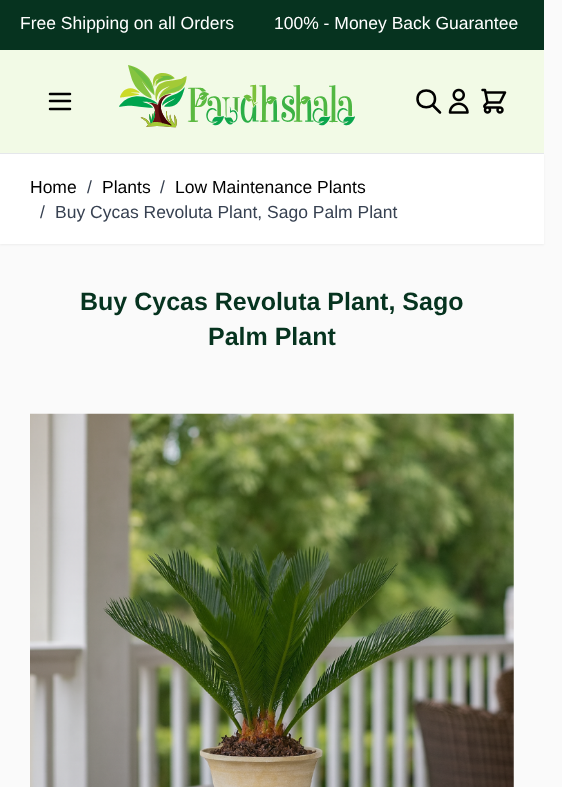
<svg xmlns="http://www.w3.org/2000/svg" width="562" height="787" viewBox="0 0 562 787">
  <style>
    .t1 { font: 17.5px Liberation Sans; fill: #fff; }
    .t2 { font: 17.5px Liberation Sans; fill: #000; }
    .t3 { font: 17.5px Liberation Sans; fill: #374151; }
    .t4 { font: bold 25px Liberation Sans; fill: #06331f; }
  </style>
  <rect width="100%" height="100%" fill="#fafafa"/>
  <rect x="0" y="0" width="544" height="50" fill="#06331f"/>
  <text x="20" y="29" class="t1">Free Shipping on all Orders</text>
  <text x="274" y="29" class="t1">100% - Money Back Guarantee</text>
  <rect x="0" y="155" width="544" height="90" fill="#0000000d" filter="blur(1px)"/>
  <rect x="0" y="50" width="544" height="103" fill="#f2fae6"/>
  <rect x="0" y="153" width="544" height="1" fill="#e5e7eb"/>
  <path d="M50 94H70M50 101H70M50 109H70" fill="none" stroke="#000" stroke-width="2.5" stroke-linecap="round" stroke-linejoin="round"/>
  <image x="119" y="65" width="236" height="63" href="images/1.png"/>
  <path d="M440 112.5L432.5 105M435 99C435 110 417.5 110 417.5 99C417.5 87.5 435 87.5 435 99Z" fill="none" stroke="#000" stroke-width="2.5" stroke-linecap="round" stroke-linejoin="round"/>
  <image x="448" y="88" width="21" height="26" href="images/2.png"/>
  <image x="481" y="88" width="26" height="26" href="images/3.png"/>
  <rect x="0" y="154" width="544" height="90" fill="#fff"/>
  <text x="30" y="193" class="t2">Home</text>
  <text x="87" y="193" class="t3">/</text>
  <text x="102" y="193" class="t2">Plants</text>
  <text x="160" y="193" class="t3">/</text>
  <text x="175" y="193" class="t2">Low Maintenance Plants</text>
  <text x="40" y="218" class="t3">/</text>
  <text x="55" y="218" class="t3">Buy Cycas Revoluta Plant, Sago Palm Plant</text>
  <text x="80" y="310" class="t4">Buy Cycas Revoluta Plant, Sago</text>
  <text x="208" y="345" class="t4">Palm Plant</text>
  <image x="30" y="413" width="484" height="374" href="images/4.png"/>
</svg>
